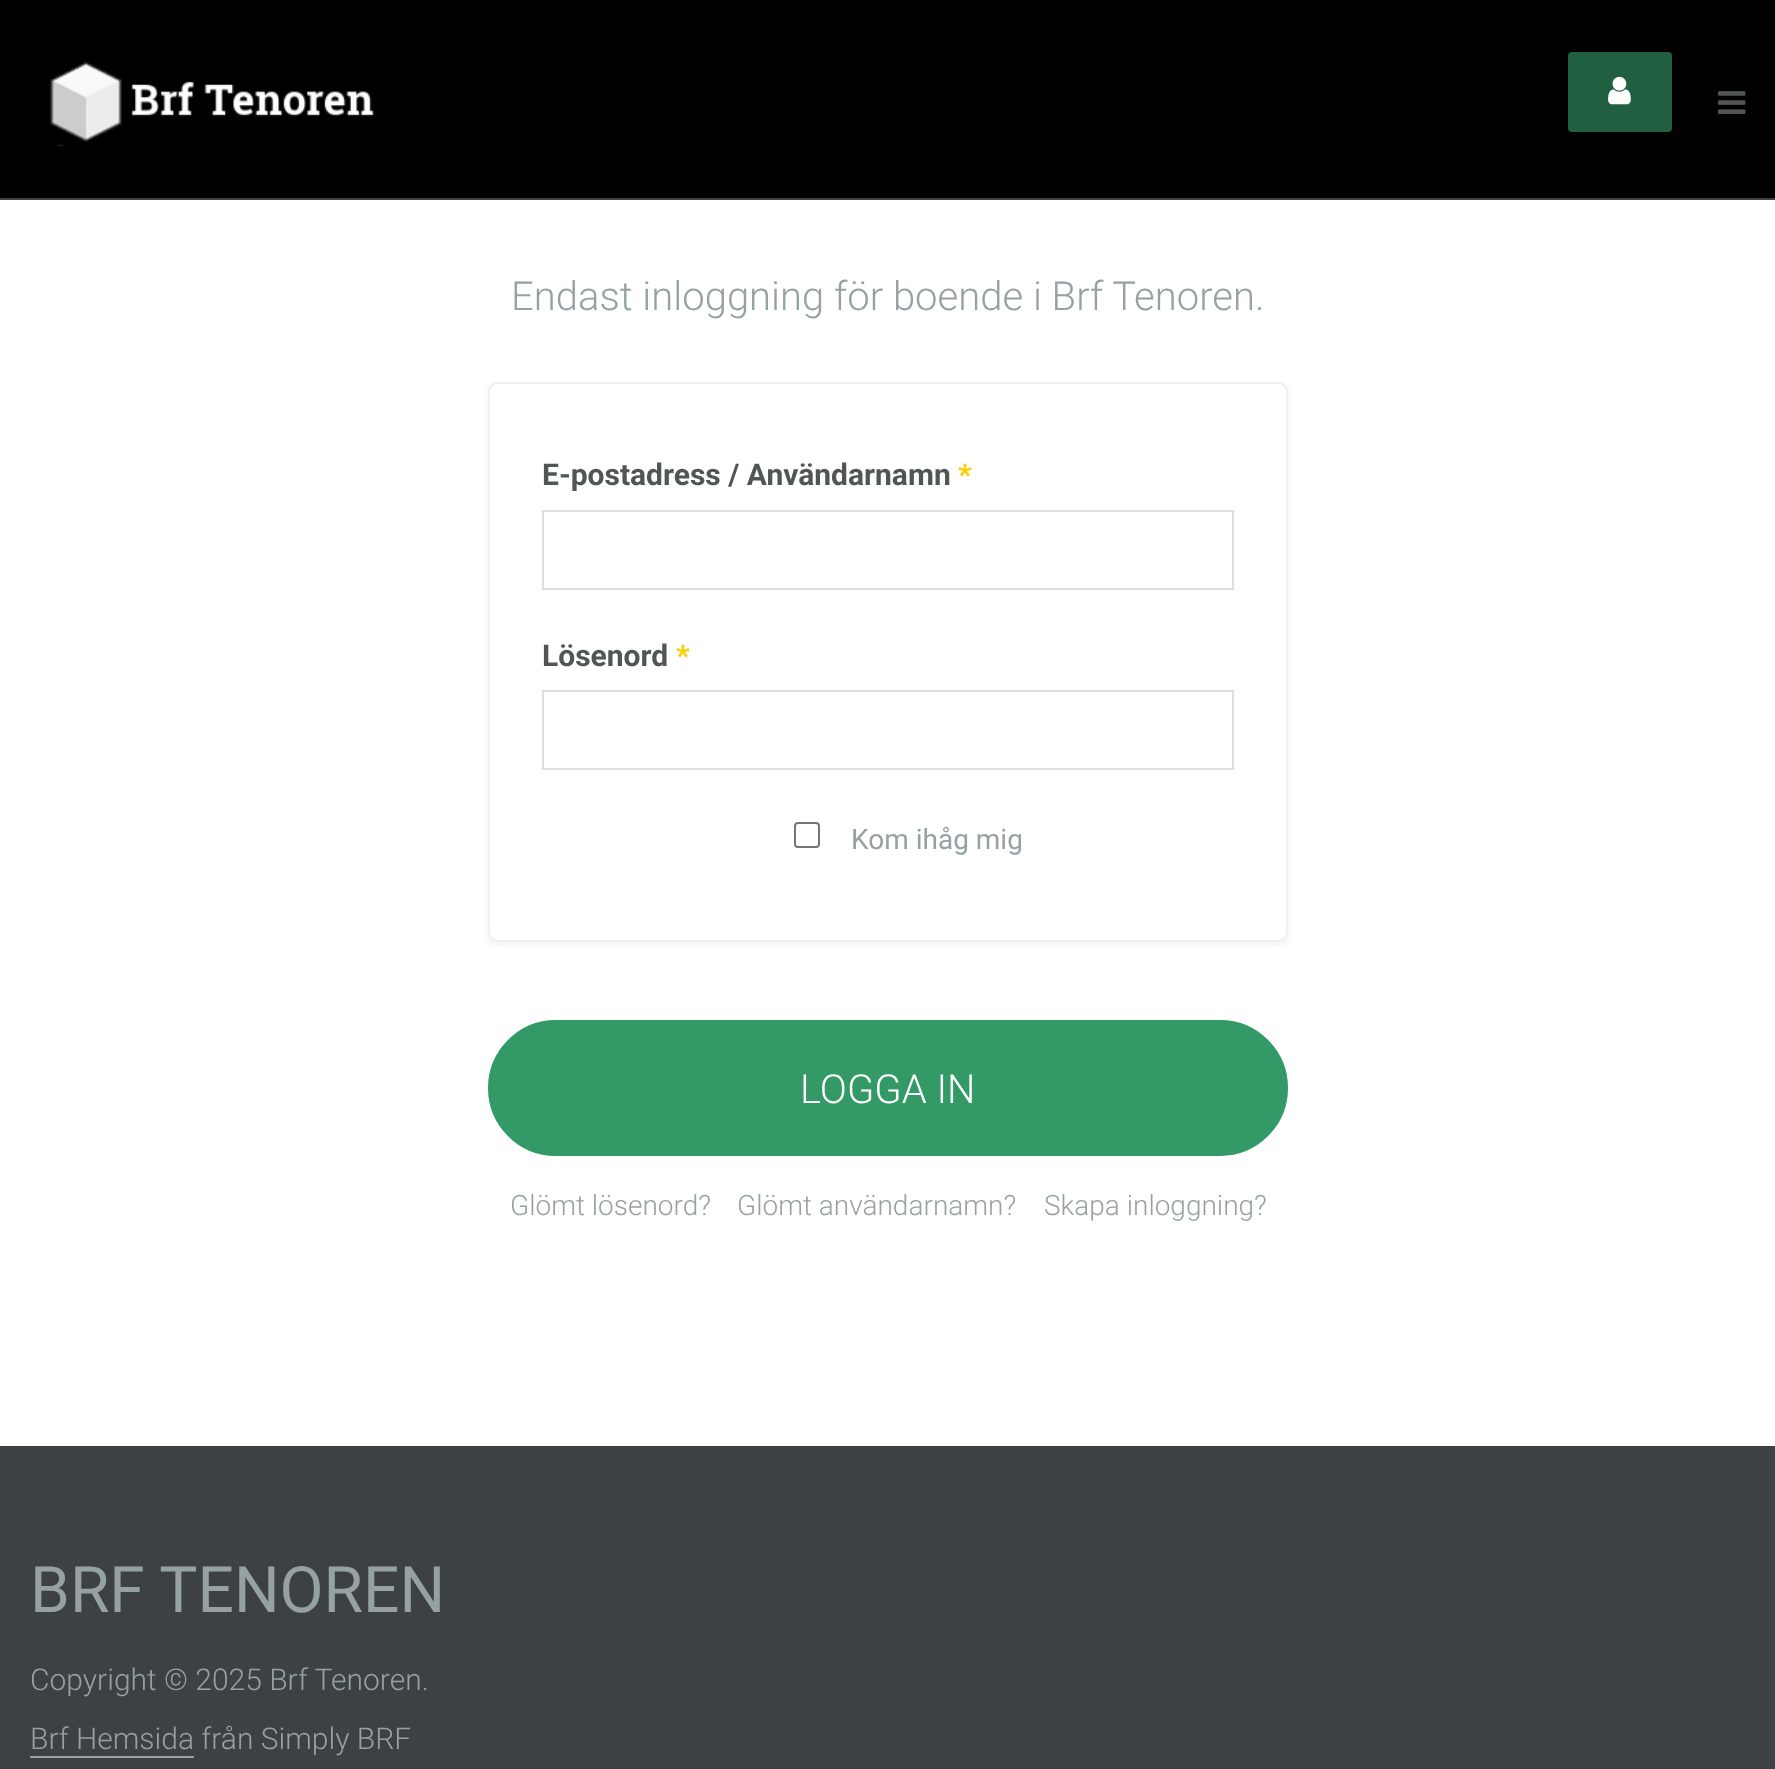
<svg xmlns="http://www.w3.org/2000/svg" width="1775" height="1769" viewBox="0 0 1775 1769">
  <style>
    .t1 { font: 300 40px Roboto; fill: #96a1a3; }
    .t2 { font: bold 30px Roboto; fill: #505656; }
    .t3 { font: bold 30px Roboto; fill: #fc0; }
    .t4 { font: 28px Roboto; fill: #96a1a3; }
    .t5 { font: 300 40px Roboto; fill: #fff; }
    .t6 { font: 300 28px Roboto; fill: #96a1a3; }
    .t7 { font: 64px Roboto; fill: #96a1a3; }
    .t8 { font: 300 30px Roboto; fill: #96a1a3; }
  </style>
  <defs>
    <clipPath id="clip1"><path d="M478 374H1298V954H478ZM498 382H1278C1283.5 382 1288 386.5 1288 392V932C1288 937.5 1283.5 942 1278 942H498C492.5 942 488 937.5 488 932V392C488 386.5 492.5 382 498 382Z" clip-rule="evenodd"/></clipPath>
  </defs>
  <rect width="100%" height="100%" fill="#fff"/>
  <rect x="0" y="0" width="1775" height="198" fill="#000"/>
  <rect x="0" y="198" width="1775" height="2" fill="#3d4045"/>
  <image x="50" y="61" width="325" height="86" href="images/1.png"/>
  <rect x="1568" y="52" width="104" height="80" rx="4" fill="#206040"/>
  <image x="1608" y="76" width="23" height="29" href="images/2.png"/>
  <image x="1718" y="91" width="28" height="23" href="images/3.png"/>
  <text x="511" y="310" class="t1">Endast inloggning för boende i Brf Tenoren.</text>
  <g clip-path="url(#clip1)">
    <rect x="488" y="384" width="800" height="560" rx="10" fill="#eee" filter="blur(3px)"/>
  </g>
  <rect x="489" y="383" width="798" height="558" rx="9" fill="none" stroke="#ecf0f1" stroke-width="2"/>
  <text x="542" y="485" class="t2">E-postadress / Användarnamn</text>
  <text x="958" y="485" class="t3">*</text>
  <rect x="543" y="511" width="690" height="78" fill="none" stroke="#ddd" stroke-width="2"/>
  <text x="542" y="666" class="t2">Lösenord</text>
  <text x="676" y="666" class="t3">*</text>
  <rect x="543" y="691" width="690" height="78" fill="none" stroke="#ddd" stroke-width="2"/>
  <rect x="795" y="823" width="24" height="24" rx="3" fill="none" stroke="#767676" stroke-width="2"/>
  <text x="851" y="849" class="t4">Kom ihåg mig</text>
  <rect x="489" y="1021" width="798" height="134" rx="67" fill="#396" stroke="#396" stroke-width="2"/>
  <text x="800" y="1103" class="t5">LOGGA IN</text>
  <text x="510" y="1215" class="t6">Glömt lösenord?</text>
  <text x="737" y="1215" class="t6">Glömt användarnamn?</text>
  <text x="1044" y="1215" class="t6">Skapa inloggning?</text>
  <rect x="0" y="1446" width="1775" height="323" fill="#3d4045"/>
  <text x="30" y="1612" class="t7">BRF TENOREN</text>
  <text x="30" y="1690" class="t8">Copyright © 2025 Brf Tenoren.</text>
  <text x="30" y="1749" class="t8">Brf Hemsida från Simply BRF</text>
  <rect x="30" y="1756" width="164" height="2" fill="#96a1a3"/>
</svg>
